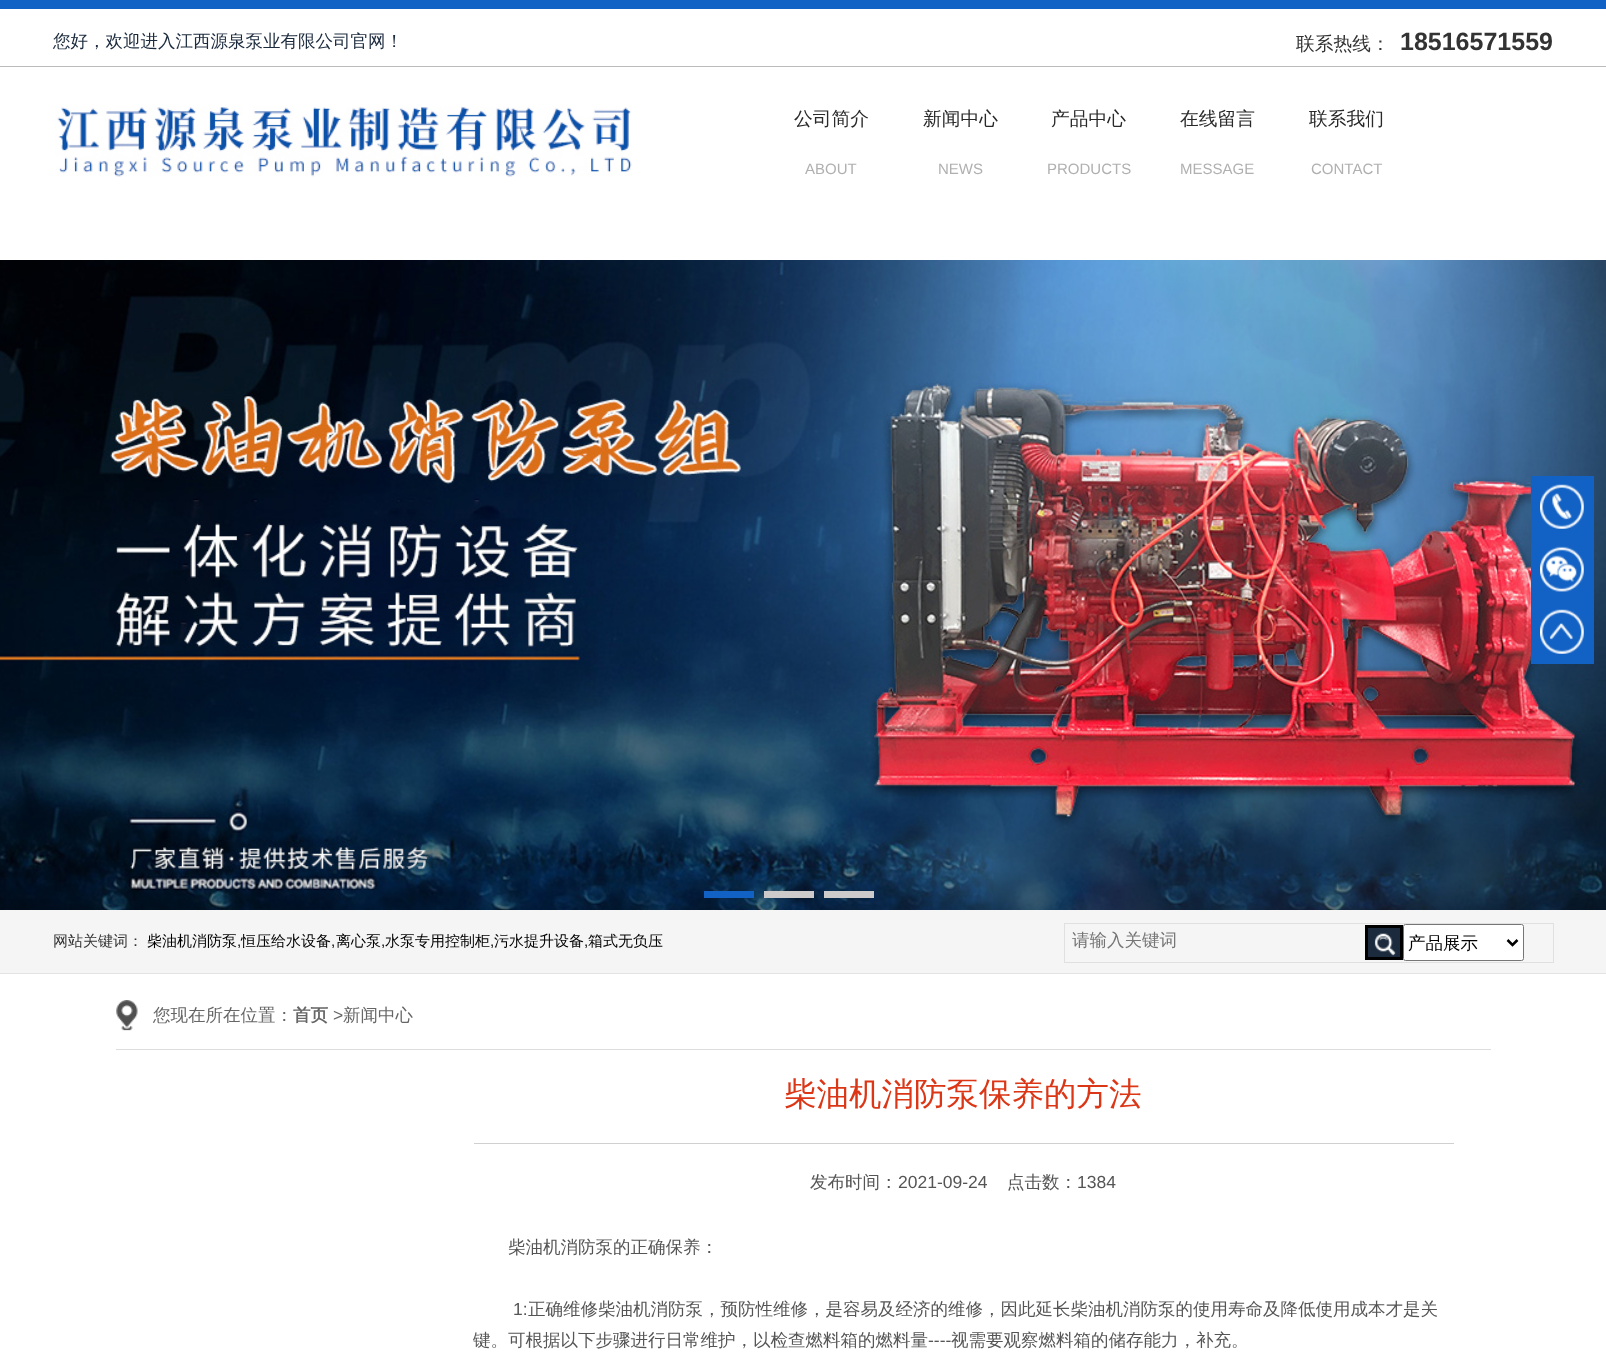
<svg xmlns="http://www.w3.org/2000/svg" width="1606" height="1360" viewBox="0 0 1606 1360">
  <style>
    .t1 { font: 500 17.5px WenQuanYi Zen Hei; fill: #1b2a3d; }
    .t2 { font: 500 18.75px WenQuanYi Zen Hei; fill: #333; }
    .t3 { font: bold 25px Liberation Sans; fill: #333; }
    .t4 { font: 500 18.75px WenQuanYi Zen Hei; fill: #292929; }
    .t5 { font: 15px Liberation Sans; fill: #b0b0b0; }
    .t6 { font: 500 15px WenQuanYi Zen Hei; fill: #333; }
    .t7 { font: 500 15px WenQuanYi Zen Hei; fill: #000; }
    .t8 { font: 15px Liberation Sans; fill: #000; }
    .t9 { font: 500 17.5px WenQuanYi Zen Hei; fill: #757575; }
    .t10 { font: 500 17.5px WenQuanYi Zen Hei; fill: #000; }
    .t11 { font: 500 17.5px WenQuanYi Zen Hei; fill: #666; }
    .t12 { font: bold 17.5px WenQuanYi Zen Hei; fill: #666; }
    .t13 { font: 17.5px Liberation Sans; fill: #666; }
    .t14 { font: 500 32.5px WenQuanYi Zen Hei; fill: #db3717; }
    .t15 { font: 500 17.5px WenQuanYi Zen Hei; fill: #555; }
    .t16 { font: 17.5px Liberation Sans; fill: #555; }
  </style>
  <rect width="100%" height="100%" fill="#fff"/>
  <rect x="0" y="0" width="1606" height="9" fill="#1261c4"/>
  <rect x="0" y="66" width="1606" height="1" fill="#bbb"/>
  <text x="53" y="47" class="t1">您好，欢迎进入江西源泉泵业有限公司官网！</text>
  <text x="1296" y="50" class="t2">联系热线：</text>
  <text x="1400" y="50" class="t3">18516571559</text>
  <image x="55" y="106" width="577" height="71" href="images/1.png"/>
  <text x="794" y="125" class="t4">公司简介</text>
  <text x="805" y="174" class="t5">ABOUT</text>
  <text x="923" y="125" class="t4">新闻中心</text>
  <text x="938" y="174" class="t5">NEWS</text>
  <text x="1051" y="125" class="t4">产品中心</text>
  <text x="1047" y="174" class="t5">PRODUCTS</text>
  <text x="1180" y="125" class="t4">在线留言</text>
  <text x="1180" y="174" class="t5">MESSAGE</text>
  <text x="1309" y="125" class="t4">联系我们</text>
  <text x="1311" y="174" class="t5">CONTACT</text>
  <image x="0" y="260" width="1606" height="650" href="images/2.png"/>
  <rect x="704" y="891" width="50" height="7" fill="#1261c4"/>
  <rect x="764" y="891" width="50" height="7" fill="#cccaca"/>
  <rect x="824" y="891" width="50" height="7" fill="#cccaca"/>
  <rect x="1531" y="476" width="63" height="188" fill="#1261c4"/>
  <image x="1540" y="484" width="44" height="45" href="images/3.png"/>
  <image x="1540" y="546" width="44" height="46" href="images/4.png"/>
  <image x="1540" y="609" width="44" height="45" href="images/5.png"/>
  <rect x="0" y="910" width="1606" height="63" fill="#f5f5f5"/>
  <rect x="0" y="973" width="1606" height="1" fill="#e3e3e3"/>
  <text x="53" y="946" class="t6">网站关键词：</text>
  <text x="147" y="946" class="t7">柴油机消防泵</text>
  <text x="237" y="946" class="t8">,</text>
  <text x="241" y="946" class="t7">恒压给水设备</text>
  <text x="331" y="946" class="t8">,</text>
  <text x="336" y="946" class="t7">离心泵</text>
  <text x="381" y="946" class="t8">,</text>
  <text x="385" y="946" class="t7">水泵专用控制柜</text>
  <text x="490" y="946" class="t8">,</text>
  <text x="494" y="946" class="t7">污水提升设备</text>
  <text x="584" y="946" class="t8">,</text>
  <text x="588" y="946" class="t7">箱式无负压</text>
  <rect x="1064.5" y="923.5" width="489" height="39" fill="none" stroke="#e0e0e0"/>
  <text x="1072" y="946" class="t9">请输入关键词</text>
  <rect x="1368" y="928" width="32" height="29" fill="#1b2a3d"/>
  <image x="1374" y="933" width="22" height="23" href="images/6.png"/>
  <rect x="1366.5" y="926.5" width="35" height="32" fill="none" stroke="#000" stroke-width="3"/>
  <rect x="1403.5" y="924.5" width="120" height="36" rx="2" fill="#fff" stroke="#767676"/>
  <path d="M1507.5 940L1512.5 945L1517.5 940" fill="none" stroke="#000" stroke-width="2.5"/>
  <text x="1408" y="949" class="t10">产品展示</text>
  <rect x="116" y="1049" width="1375" height="1" fill="#ddd"/>
  <image x="116" y="1000" width="22" height="31" href="images/7.png"/>
  <text x="153" y="1021" class="t11">您现在所在位置：</text>
  <text x="293" y="1021" class="t12">首页</text>
  <text x="333" y="1021" class="t13">&gt;</text>
  <text x="343" y="1021" class="t11">新闻中心</text>
  <rect x="474" y="1143" width="980" height="1" fill="#d0d0d0"/>
  <text x="784" y="1105" class="t14">柴油机消防泵保养的方法</text>
  <text x="810" y="1188" class="t15">发布时间：</text>
  <text x="898" y="1188" class="t16">2021-09-24</text>
  <text x="1007" y="1188" class="t15">点击数：</text>
  <text x="1077" y="1188" class="t16">1384</text>
  <text x="508" y="1253" class="t15">柴油机消防泵的正确保养：</text>
  <text x="513" y="1315" class="t16">1:</text>
  <text x="528" y="1315" class="t15">正确维修柴油机消防泵，预防性维修，是容易及经济的维修，因此延长柴油机消防泵的使用寿命及降低使用成本才是关</text>
  <text x="473" y="1346" class="t15">键。可根据以下步骤进行日常维护，以检查燃料箱的燃料量</text>
  <text x="928" y="1346" class="t16">----</text>
  <text x="951" y="1346" class="t15">视需要观察燃料箱的储存能力，补充。</text>
</svg>
